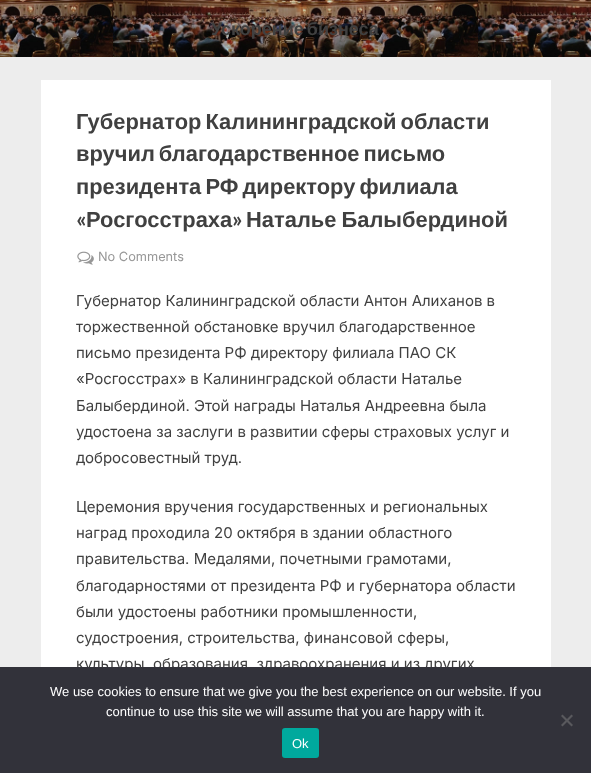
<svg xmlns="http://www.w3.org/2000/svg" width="591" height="773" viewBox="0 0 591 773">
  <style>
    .t1 { font: bold 18px Liberation Sans; fill: #404040; }
    .t2 { font: bold 21.9px Liberation Sans; fill: #404040; }
    .t3 { font: bold 21.9px Lato; fill: #404040; }
    .t4 { font: 12.75px Inter; fill: #979797; }
    .t5 { font: 15px Inter; fill: #404040; }
    .t6 { font: 13px Liberation Sans; fill: #fff; }
  </style>
  <rect width="100%" height="100%" fill="#ededed"/>
  <image x="0" y="0" width="591" height="57" href="images/1.png"/>
  <text x="211" y="35" word-spacing="-2" class="t1">Ускорение бизнеса</text>
  <rect x="41" y="80" width="510" height="587" fill="#fff"/>
  <text x="76" y="129" word-spacing="-2" class="t2">Губернатор Калининградской области</text>
  <text x="76" y="161" word-spacing="-2" class="t2">вручил благодарственное письмо</text>
  <text x="76" y="194" word-spacing="-2" class="t2">президента РФ директору филиала</text>
  <text x="76" y="227" class="t3">«</text>
  <text x="86" y="227" class="t2">Росгосстраха</text>
  <text x="232" y="227" class="t3">»</text>
  <text x="246" y="227" word-spacing="-1" class="t2">Наталье Балыбердиной</text>
  <image x="77" y="251" width="17" height="14" href="images/2.png"/>
  <text x="98" y="261" class="t4">No Comments</text>
  <text x="76" y="306" class="t5">Губернатор Калининградской области Антон Алиханов в</text>
  <text x="76" y="332" class="t5">торжественной обстановке вручил благодарственное</text>
  <text x="76" y="358" class="t5">письмо президента РФ директору филиала ПАО СК</text>
  <text x="76" y="384" class="t5">«Росгосстрах» в Калининградской области Наталье</text>
  <text x="76" y="411" class="t5">Балыбердиной. Этой награды Наталья Андреевна была</text>
  <text x="76" y="437" class="t5">удостоена за заслуги в развитии сферы страховых услуг и</text>
  <text x="76" y="463" class="t5">добросовестный труд.</text>
  <text x="76" y="512" class="t5">Церемония вручения государственных и региональных</text>
  <text x="76" y="538" class="t5">наград проходила 20 октября в здании областного</text>
  <text x="76" y="564" class="t5">правительства. Медалями, почетными грамотами,</text>
  <text x="76" y="591" class="t5">благодарностями от президента РФ и губернатора области</text>
  <text x="76" y="617" class="t5">были удостоены работники промышленности,</text>
  <text x="76" y="643" class="t5">судостроения, строительства, финансовой сферы,</text>
  <text x="76" y="669" class="t5">культуры, образования, здравоохранения и из других</text>
  <rect x="0" y="667" width="591" height="106" fill="#32323a"/>
  <text x="50" y="696" class="t6">We use cookies to ensure that we give you the best experience on our website. If you</text>
  <text x="106" y="716" class="t6">continue to use this site we will assume that you are happy with it.</text>
  <path d="M571.5 714.5L573 716L562.5 726.5L561 725Z" fill="#59595d"/>
  <path d="M561 716L562.5 714.5L573 725L571.5 726.5Z" fill="#59595d"/>
  <rect x="282" y="728" width="37" height="30" rx="3" fill="#00a99d"/>
  <text x="292" y="748" class="t6">Ok</text>
</svg>
